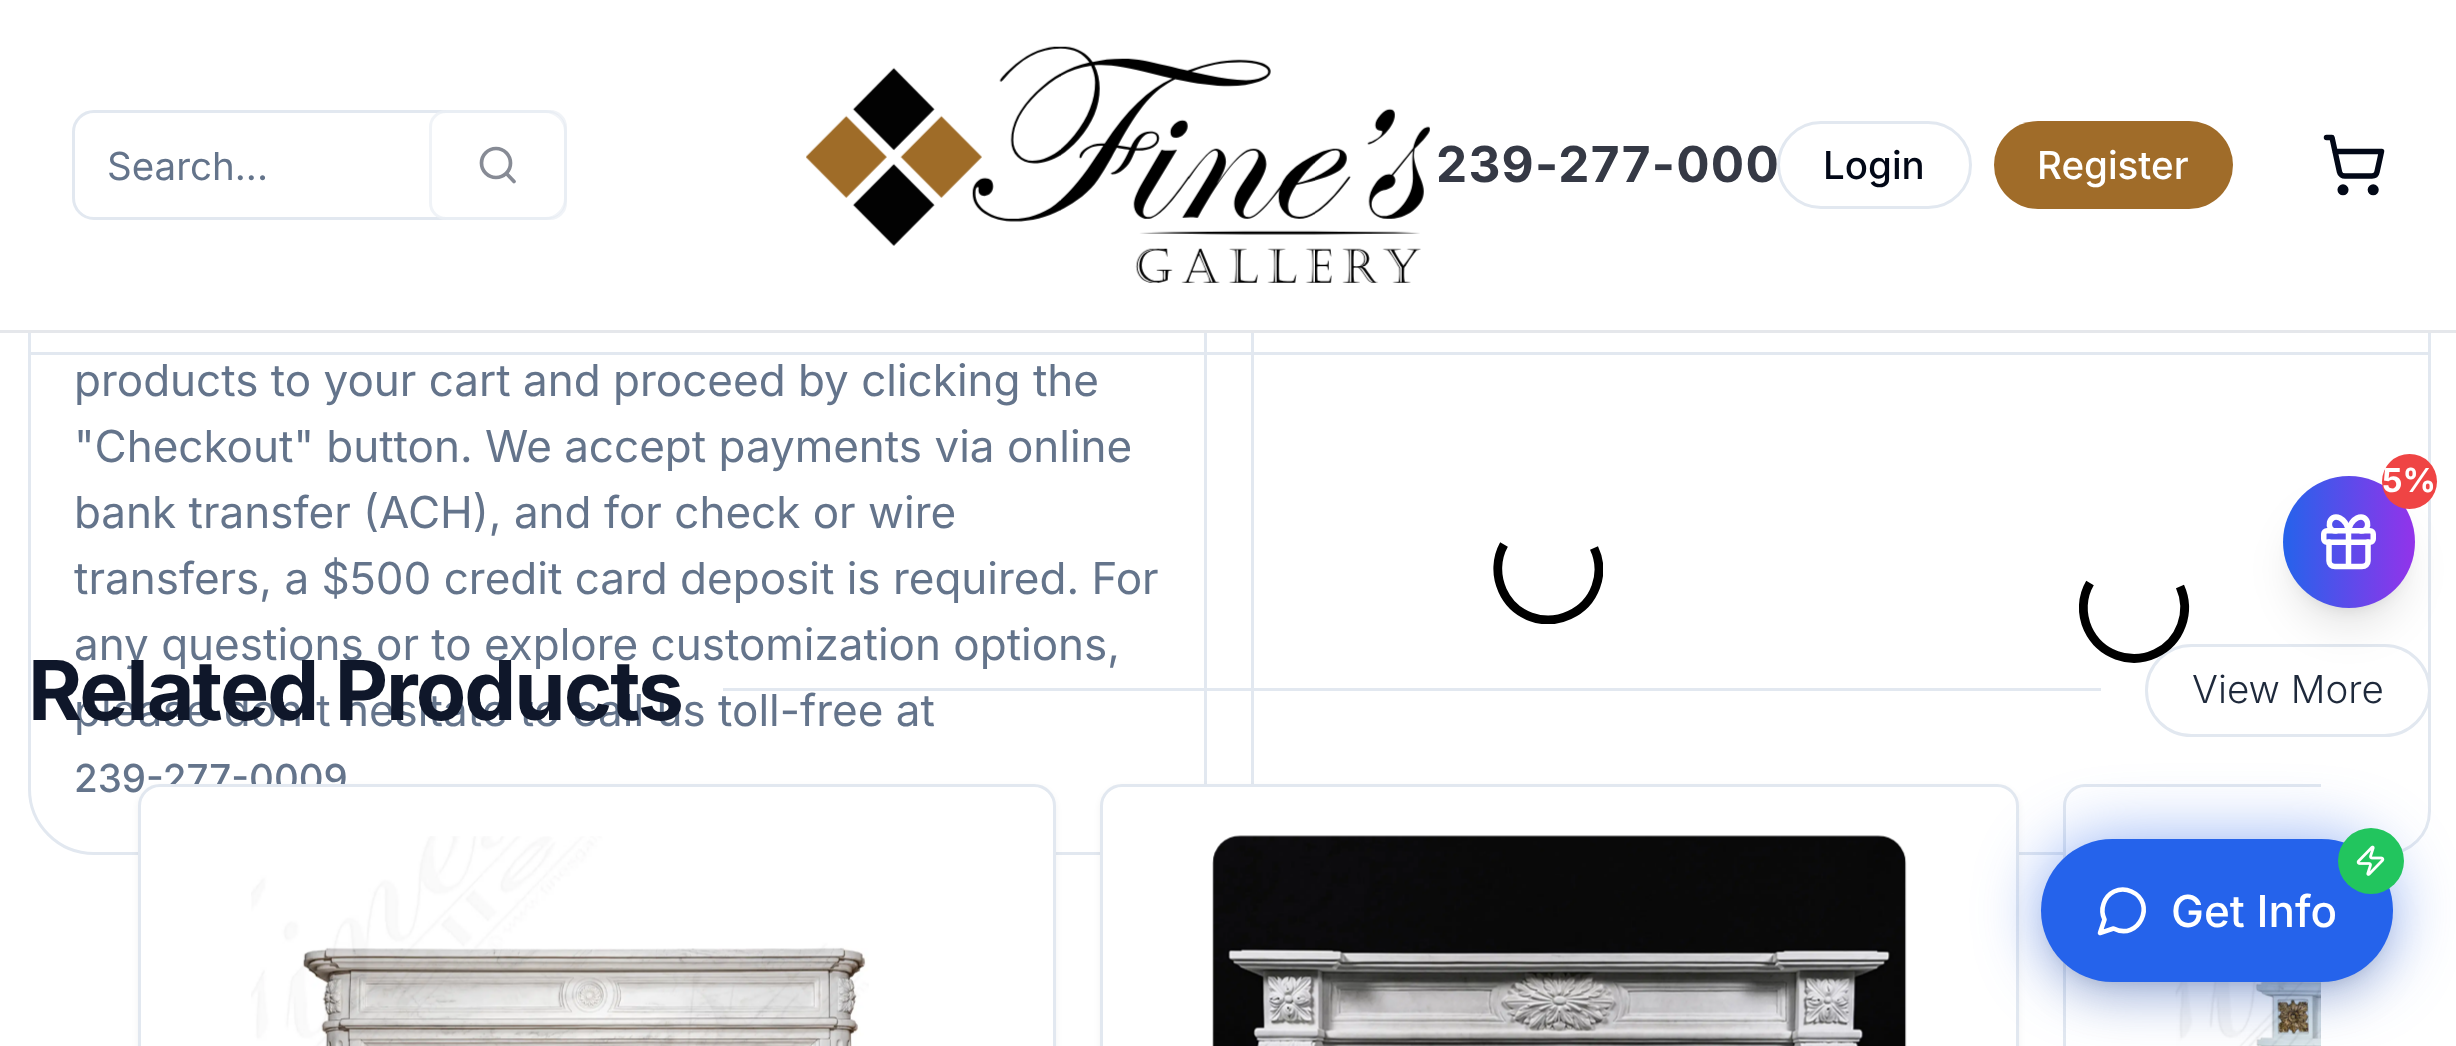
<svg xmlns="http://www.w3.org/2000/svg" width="2456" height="1046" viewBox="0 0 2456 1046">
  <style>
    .t1 { font: 38.5px Inter; fill: #64748b; }
    .t2 { font: bold 49.5px Inter; letter-spacing: 1.25px; fill: #353945; }
    .t3 { font: 500 38.5px Inter; fill: #020817; }
    .t4 { font: 500 38.5px Inter; fill: #fff; }
    .t5 { font: 44px Inter; fill: #64748b; }
    .t6 { font: 500 38.5px Inter; fill: #64748b; }
    .t7 { font: bold 82.5px Inter; letter-spacing: -2px; fill: #0f172a; }
    .t8 { font: 300 38.5px Inter; fill: #1e293b; }
    .t9 { font: 500 44px Inter; fill: #fff; }
    .t10 { font: bold 33px Inter; fill: #fff; }
  </style>
  <defs>
    <clipPath id="clip1"><rect x="1493" y="514" width="110" height="110"/></clipPath>
    <clipPath id="clip2"><rect x="138" y="784" width="2183" height="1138"/></clipPath>
    <linearGradient id="g1" gradientUnits="userSpaceOnUse" x1="2283" y1="542" x2="2415" y2="542"><stop offset="0" stop-color="#2563eb"/><stop offset="1" stop-color="#9333ea"/></linearGradient>
  </defs>
  <rect width="100%" height="100%" fill="#fff"/>
  <rect x="28" y="352" width="2403" height="3" fill="#e2e8f0"/>
  <rect x="29.5" y="-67.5" width="1176" height="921" rx="64.5" fill="none" stroke="#e2e8f0" stroke-width="3"/>
  <rect x="1252.5" y="-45.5" width="1177" height="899" rx="42.5" fill="none" stroke="#e2e8f0" stroke-width="3"/>
  <rect x="28" y="0" width="2403" height="330" fill="#fff"/>
  <rect x="73.5" y="111.5" width="492" height="107" rx="20.5" fill="none" stroke="#e2e8f0" stroke-width="3"/>
  <text x="107" y="180" class="t1">Search...</text>
  <rect x="429" y="110" width="138" height="110" rx="17" fill="#ffffff80"/>
  <rect x="430.5" y="111.5" width="135" height="107" rx="15.5" fill="none" stroke="#e2e8f080" stroke-width="3"/>
  <circle cx="496" cy="163" r="14.5" fill="none" stroke="#878b95" stroke-width="3.7"/>
  <path d="M514 181.5L506.5 173.5" fill="none" stroke="#878b95" stroke-width="3.7" stroke-linecap="round" stroke-linejoin="round"/>
  <image x="806" y="46" width="624" height="237" href="images/1.png"/>
  <text x="1436" y="182" class="t2">239-277-000</text>
  <rect x="1778.5" y="122.5" width="192" height="85" rx="42.5" fill="none" stroke="#e2e8f0" stroke-width="3"/>
  <text x="1823" y="179" class="t3">Login</text>
  <rect x="1994" y="121" width="239" height="88" rx="44" fill="#a06c29"/>
  <text x="2037" y="179" class="t4">Register</text>
  <circle cx="2343" cy="189.8" r="2.8" fill="none" stroke="#020817" stroke-width="5.5"/>
  <circle cx="2373.2" cy="189.8" r="2.8" fill="none" stroke="#020817" stroke-width="5.5"/>
  <path d="M2326.5 137.5H2332L2339.5 172C2340 174.5 2342.5 176 2345 176H2372C2374.5 176 2376.5 174.5 2377 172L2381.5 151.5H2335" fill="none" stroke="#020817" stroke-width="5.5" stroke-linecap="round" stroke-linejoin="round"/>
  <rect x="0" y="330" width="2456" height="3" fill="#e5e7eb"/>
  <text x="74" y="396" class="t5">products to your cart and proceed by clicking the</text>
  <text x="74" y="462" class="t5">"Checkout" button. We accept payments via online</text>
  <text x="74" y="528" class="t5">bank transfer (ACH), and for check or wire</text>
  <text x="74" y="594" class="t5">transfers, a $500 credit card deposit is required. For</text>
  <text x="74" y="660" class="t5">any questions or to explore customization options,</text>
  <text x="74" y="726" class="t5">please don't hesitate to call us toll-free at</text>
  <text x="74" y="792" class="t6">239-277-0009</text>
  <g clip-path="url(#clip1)">
    <path d="M1594 548C1606 573.5 1595 603.5 1569.5 615C1544 627 1514 616 1502.5 590.5C1495.5 575 1496.5 558 1504 544.5" fill="none" stroke="#000" stroke-width="8.8"/>
  </g>
  <rect x="2146.5" y="645.5" width="283" height="90" rx="45" fill="none" stroke="#e2e8f0" stroke-width="3"/>
  <path d="M2180 586.5C2191.5 612 2180.5 642 2155.5 653.5C2130 665.5 2100 654.5 2088 629C2081 613.5 2082 596.5 2090 583" fill="none" stroke="#000" stroke-width="8.8"/>
  <text x="28" y="720" class="t7">Related Products</text>
  <rect x="723" y="688" width="1378" height="3" fill="#e2e8f0"/>
  <text x="2192" y="703" class="t8">View More</text>
  <rect x="138" y="787" width="918" height="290" rx="22" fill="#0000000d" filter="blur(3px)"/>
  <rect x="139.5" y="785.5" width="915" height="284" rx="20.5" fill="#fff" stroke="#e2e8f0" stroke-width="3"/>
  <image x="251" y="836" width="618" height="210" href="images/2.png"/>
  <rect x="1100" y="787" width="919" height="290" rx="22" fill="#0000000d" filter="blur(3px)"/>
  <rect x="1101.5" y="785.5" width="916" height="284" rx="20.5" fill="#fff" stroke="#e2e8f0" stroke-width="3"/>
  <image x="1212" y="835" width="695" height="211" href="images/3.png"/>
  <path d="M2085 784H2321V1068H2085C2073 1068 2063 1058 2063 1046V806C2063 794 2073 784 2085 784Z" fill="#fff"/>
  <g clip-path="url(#clip2)">
    <rect x="2064.5" y="785.5" width="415" height="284" rx="20.5" fill="none" stroke="#e2e8f0" stroke-width="3"/>
  </g>
  <image x="2175" y="982" width="146" height="64" href="images/4.png"/>
  <rect x="2041" y="839" width="352" height="143" rx="71.5" fill="#2563eb80" filter="blur(33px)"/>
  <rect x="2052" y="861" width="330" height="121" rx="60.5" fill="#0000001a" filter="blur(8px)"/>
  <rect x="2049" y="875" width="335" height="126" rx="63" fill="#0000001a" filter="blur(20.5px)"/>
  <rect x="2041" y="839" width="352" height="143" rx="71.5" fill="#2563eb"/>
  <circle cx="2371" cy="861" r="33" fill="#22c55e"/>
  <image x="2356" y="845" width="29" height="31" href="images/5.png"/>
  <path d="M2113.5 928.5C2138.5 941.5 2157 903 2131.5 891.5C2126 889 2119.5 889 2114 891.5C2104 896.5 2099.5 909.5 2104.5 919.5L2100 933Z" fill="none" stroke="#fff" stroke-width="4.6" stroke-linecap="round" stroke-linejoin="round"/>
  <text x="2171" y="927" class="t9">Get Info</text>
  <rect x="2294" y="498" width="110" height="110" rx="55" fill="#0000001a" filter="blur(8px)"/>
  <rect x="2291" y="512" width="115" height="115" rx="57.5" fill="#0000001a" filter="blur(20.5px)"/>
  <circle cx="2349" cy="542" r="66" fill="url(#g1)"/>
  <circle cx="2409.5" cy="481.5" r="27.5" fill="#ef4444"/>
  <text x="2382" y="492" class="t10">5%</text>
  <rect x="2323.75" y="530.75" width="49.5" height="11.5" rx="3.25" fill="none" stroke="#fff" stroke-width="5.5"/>
  <path d="M2348.5 531V566.5M2368 542V561C2368 564 2365.5 566.5 2362 566.5H2335C2331.5 566.5 2329 564 2329 561V542M2336 531C2325 531 2328.5 512.5 2340 518C2345 520.5 2347.5 526 2348.5 531C2349.5 526 2352 520.5 2357 518C2368.5 512.5 2372 531 2361 531" fill="none" stroke="#fff" stroke-width="5.5" stroke-linecap="round" stroke-linejoin="round"/>
</svg>
